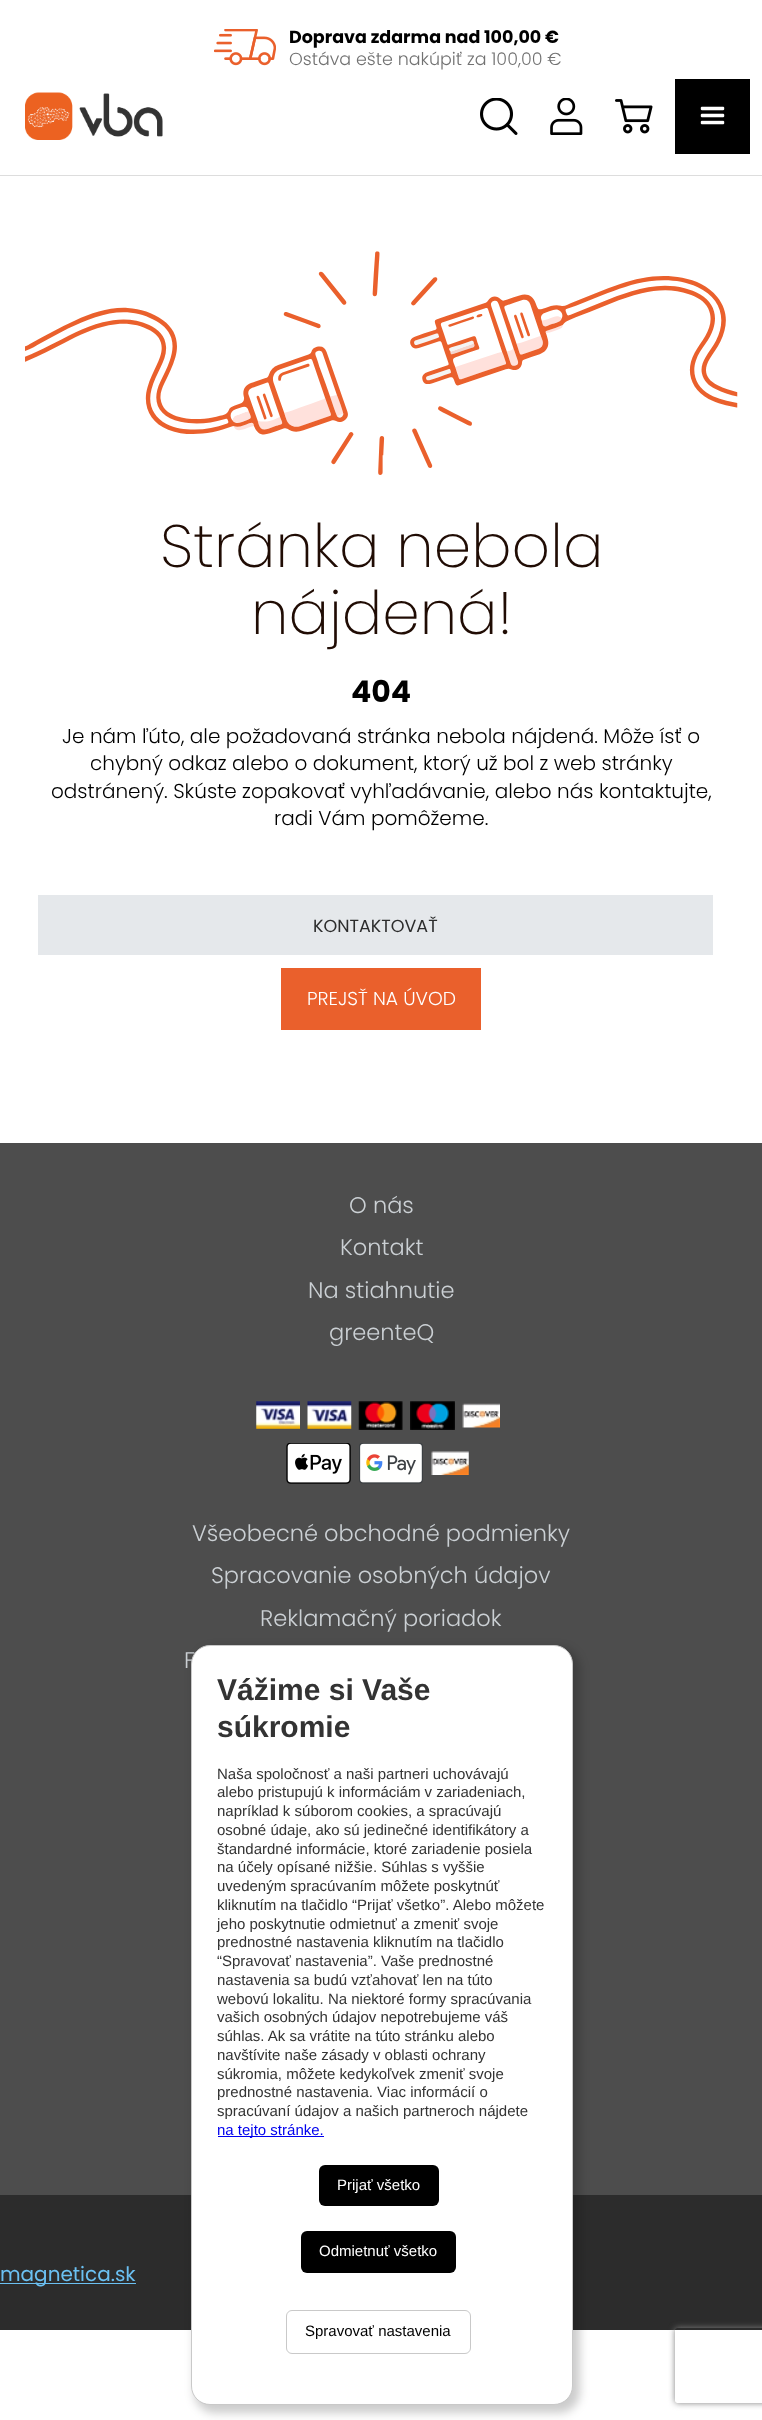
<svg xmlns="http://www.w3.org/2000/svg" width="762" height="2420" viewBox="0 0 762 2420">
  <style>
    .t1 { font: bold 17.5px Poppins; fill: #000; }
    .t2 { font: 300 17.5px Poppins; fill: #727272; }
    .t3 { font: 200 60px Poppins; fill: #200c04; }
    .t4 { font: bold 30px Poppins; fill: #000; }
    .t5 { font: 300 20px Poppins; fill: #000; }
    .t6 { font: 17.5px Poppins; fill: #2c2c2c; }
    .t7 { font: 300 18.75px Poppins; fill: #fff; }
    .t8 { font: 300 22.5px Poppins; fill: #cbd0d4; }
    .t9 { font: 20px Poppins; fill: #6bc0f2; }
    .t10 { font: bold 30px Liberation Sans; fill: #333; }
    .t11 { font: 15px Liberation Sans; fill: #333; }
    .t12 { font: 15px Liberation Sans; fill: #00e; }
    .t13 { font: 15px Liberation Sans; fill: #fff; }
    .t14 { font: 15px Liberation Sans; fill: #000; }
  </style>
  <defs>
    <clipPath id="clip1"><path d="M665 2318H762V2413H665ZM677.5 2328H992.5C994 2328 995 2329 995 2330.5V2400.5C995 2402 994 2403 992.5 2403H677.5C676 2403 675 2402 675 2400.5V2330.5C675 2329 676 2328 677.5 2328Z" clip-rule="evenodd"/></clipPath>
  </defs>
  <rect width="100%" height="100%" fill="#fff"/>
  <rect x="0" y="175" width="762" height="1" fill="#ddd"/>
  <image x="214" y="29" width="62" height="37" href="images/1.png"/>
  <text x="289" y="43" class="t1">Doprava zdarma nad 100,00 €</text>
  <text x="289" y="65" class="t2">Ostáva ešte nakúpiť za 100,00 €</text>
  <image x="25" y="92" width="138" height="48" href="images/2.png"/>
  <image x="480" y="98" width="38" height="37" href="images/3.png"/>
  <image x="550" y="98" width="33" height="37" href="images/4.png"/>
  <image x="615" y="99" width="38" height="35" href="images/5.png"/>
  <rect x="675" y="79" width="75" height="75" fill="#000"/>
  <image x="700" y="106" width="25" height="19" href="images/6.png"/>
  <image x="25" y="251" width="713" height="224" href="images/7.png"/>
  <text x="160" y="567" class="t3">Stránka nebola</text>
  <text x="251" y="634" class="t3">nájdená!</text>
  <text x="351" y="702" class="t4">404</text>
  <text x="62" y="743" class="t5">Je nám ľúto, ale požadovaná stránka nebola nájdená. Môže ísť o</text>
  <text x="90" y="770" class="t5">chybný odkaz alebo o dokument, ktorý už bol z web stránky</text>
  <text x="51" y="798" class="t5">odstránený. Skúste zopakovať vyhľadávanie, alebo nás kontaktujte,</text>
  <text x="274" y="825" class="t5">radi Vám pomôžeme.</text>
  <rect x="38" y="895" width="675" height="60" fill="#e5e8eb"/>
  <text x="313" y="932" class="t6">KONTAKTOVAŤ</text>
  <rect x="281" y="968" width="200" height="62" fill="#ea602c"/>
  <text x="307" y="1005" class="t7">PREJSŤ NA ÚVOD</text>
  <rect x="0" y="1143" width="762" height="1052" fill="#4d4d4d"/>
  <text x="349" y="1213" class="t8">O nás</text>
  <text x="340" y="1255" class="t8">Kontakt</text>
  <text x="308" y="1298" class="t8">Na stiahnutie</text>
  <text x="329" y="1340" class="t8">greenteQ</text>
  <image x="256" y="1401" width="44" height="28" href="images/8.png"/>
  <image x="307" y="1401" width="45" height="28" href="images/9.png"/>
  <image x="358" y="1401" width="45" height="29" href="images/10.png"/>
  <image x="410" y="1401" width="45" height="29" href="images/11.png"/>
  <image x="462" y="1403" width="38" height="25" href="images/12.png"/>
  <image x="286" y="1443" width="65" height="41" href="images/13.png"/>
  <image x="359" y="1443" width="64" height="41" href="images/14.png"/>
  <image x="431" y="1451" width="38" height="24" href="images/15.png"/>
  <text x="192" y="1541" class="t8">Všeobecné obchodné podmienky</text>
  <text x="211" y="1583" class="t8">Spracovanie osobných údajov</text>
  <text x="260" y="1626" class="t8">Reklamačný poriadok</text>
  <text x="184" y="1668" class="t8">F</text>
  <rect x="0" y="2195" width="762" height="135" fill="#2c2c2c"/>
  <rect x="0" y="2283" width="136" height="1" fill="#6bc0f2"/>
  <text x="0" y="2281" class="t9">magnetica.sk</text>
  <rect x="194" y="1648" width="386" height="765" rx="21" fill="#00000033" filter="blur(5px)"/>
  <rect x="191.5" y="1645.5" width="381" height="759" rx="18.5" fill="#fff" stroke="#c9c9c9"/>
  <text x="217" y="1700" class="t10">Vážime si Vaše</text>
  <text x="217" y="1737" class="t10">súkromie</text>
  <text x="217" y="1779" class="t11">Naša spoločnosť a naši partneri uchovávajú</text>
  <text x="217" y="1797" class="t11">alebo pristupujú k informáciám v zariadeniach,</text>
  <text x="217" y="1816" class="t11">napríklad k súborom cookies, a spracúvajú</text>
  <text x="217" y="1835" class="t11">osobné údaje, ako sú jedinečné identifikátory a</text>
  <text x="217" y="1854" class="t11">štandardné informácie, ktoré zariadenie posiela</text>
  <text x="217" y="1872" class="t11">na účely opísané nižšie. Súhlas s vyššie</text>
  <text x="217" y="1891" class="t11">uvedeným spracúvaním môžete poskytnúť</text>
  <text x="217" y="1910" class="t11">kliknutím na tlačidlo “Prijať všetko”. Alebo môžete</text>
  <text x="217" y="1929" class="t11">jeho poskytnutie odmietnuť a zmeniť svoje</text>
  <text x="217" y="1947" class="t11">prednostné nastavenia kliknutím na tlačidlo</text>
  <text x="217" y="1966" class="t11">“Spravovať nastavenia”. Vaše prednostné</text>
  <text x="217" y="1985" class="t11">nastavenia sa budú vzťahovať len na túto</text>
  <text x="217" y="2004" class="t11">webovú lokalitu. Na niektoré formy spracúvania</text>
  <text x="217" y="2022" class="t11">vašich osobných údajov nepotrebujeme váš</text>
  <text x="217" y="2041" class="t11">súhlas. Ak sa vrátite na túto stránku alebo</text>
  <text x="217" y="2060" class="t11">navštívite naše zásady v oblasti ochrany</text>
  <text x="217" y="2079" class="t11">súkromia, môžete kedykoľvek zmeniť svoje</text>
  <text x="217" y="2097" class="t11">prednostné nastavenia. Viac informácií o</text>
  <text x="217" y="2116" class="t11">spracúvaní údajov a našich partneroch nájdete</text>
  <rect x="218" y="2136" width="106" height="1" fill="#00e"/>
  <text x="217" y="2135" class="t12">na tejto stránke.</text>
  <rect x="319" y="2165" width="120" height="41" rx="6" fill="#000"/>
  <text x="337" y="2190" class="t13">Prijať všetko</text>
  <rect x="301" y="2231" width="155" height="42" rx="6" fill="#000"/>
  <text x="319" y="2256" class="t13">Odmietnuť všetko</text>
  <rect x="286.5" y="2310.5" width="184" height="43" rx="5.5" fill="none" stroke="#c9c9c9"/>
  <text x="305" y="2336" class="t14">Spravovať nastavenia</text>
  <g clip-path="url(#clip1)">
    <rect x="675" y="2328" width="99" height="75" rx="2.5" fill="#808080" filter="blur(3px)"/>
  </g>
</svg>
